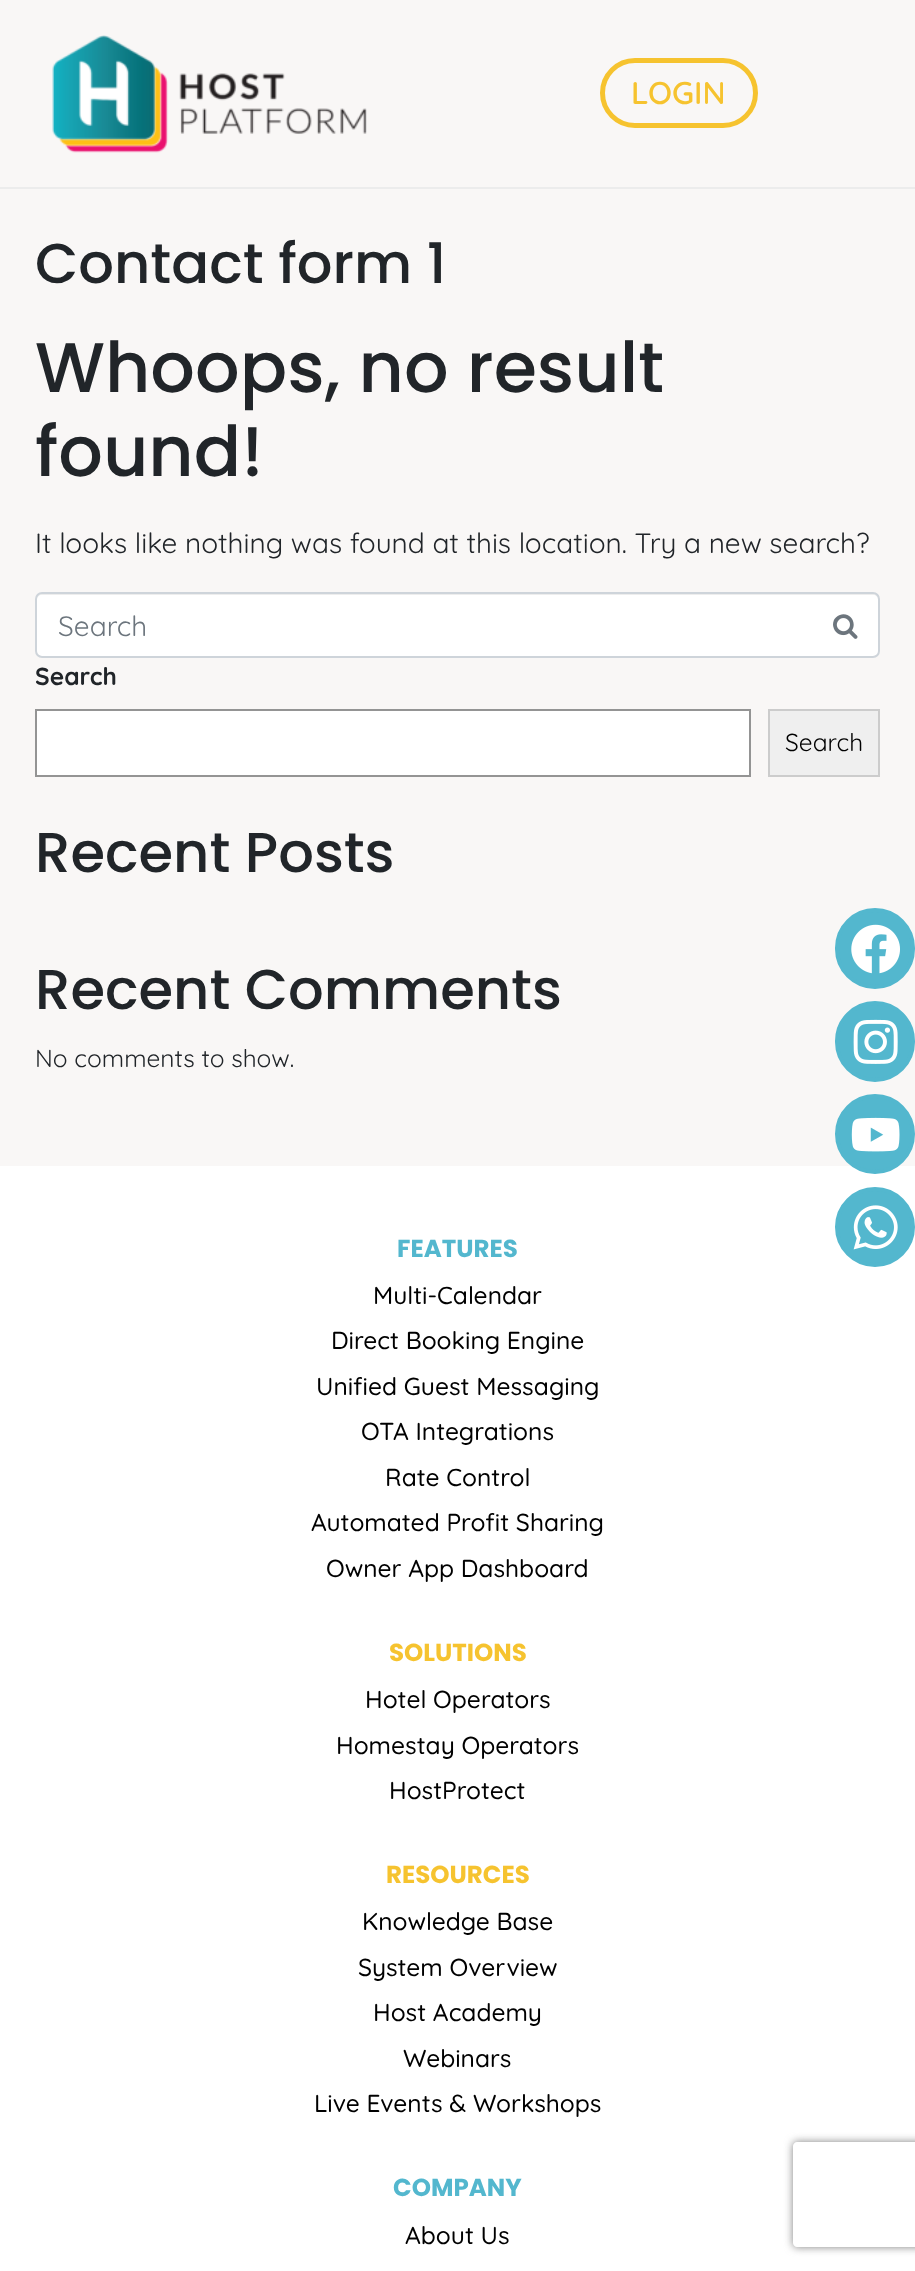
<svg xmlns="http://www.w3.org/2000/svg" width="915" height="2271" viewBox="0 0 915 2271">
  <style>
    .t1 { font: 600 31.5px Quicksand; fill: #f6c32f; }
    .t2 { font: 500 56px Poppins; fill: #212529; }
    .t3 { font: 500 70px Poppins; fill: #212529; }
    .t4 { font: 28px Quicksand; fill: #212529; }
    .t5 { font: 28px Quicksand; fill: #6c757d; }
    .t6 { font: bold 24.5px Quicksand; fill: #212529; }
    .t7 { font: 24.5px Quicksand; fill: #000; }
    .t8 { font: 24.5px Quicksand; fill: #212529; }
    .t9 { font: bold 24.5px Poppins; fill: #53b7ce; }
    .t10 { font: 500 24.5px Quicksand; fill: #000; }
    .t11 { font: bold 24.5px Poppins; fill: #f6c32f; }
  </style>
  <defs>
    <clipPath id="clip1"><path d="M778 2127H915V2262H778ZM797 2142H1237C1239 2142 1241 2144 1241 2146V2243C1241 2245 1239 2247 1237 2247H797C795 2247 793 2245 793 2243V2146C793 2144 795 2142 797 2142Z" clip-rule="evenodd"/></clipPath>
  </defs>
  <rect width="100%" height="100%" fill="#f9f7f6"/>
  <rect x="0" y="187" width="915" height="2" fill="#ececec"/>
  <image x="52" y="35" width="315" height="118" href="images/1.png"/>
  <rect x="602.5" y="60.5" width="153" height="65" rx="32.5" fill="none" stroke="#f6c32f" stroke-width="5"/>
  <text x="631" y="104" class="t1">LOGIN</text>
  <rect x="837" y="910" width="76" height="77" rx="38" fill="#53b7ce" stroke="#53b7ce" stroke-width="4"/>
  <image x="851" y="924" width="49" height="50" href="images/2.png"/>
  <rect x="837" y="1003" width="76" height="77" rx="38" fill="#53b7ce" stroke="#53b7ce" stroke-width="4"/>
  <image x="853" y="1019" width="45" height="45" href="images/3.png"/>
  <rect x="0" y="1166" width="915" height="1105" fill="#fff"/>
  <circle cx="875" cy="1134" r="38" fill="#53b7ce" stroke="#53b7ce" stroke-width="4"/>
  <image x="851" y="1117" width="49" height="35" href="images/4.png"/>
  <circle cx="875" cy="1227" r="38" fill="#53b7ce" stroke="#53b7ce" stroke-width="4"/>
  <image x="853" y="1205" width="45" height="45" href="images/5.png"/>
  <text x="35" y="283" class="t2">Contact form 1</text>
  <text x="35" y="392" class="t3">Whoops, no result</text>
  <text x="35" y="476" class="t3">found!</text>
  <text x="35" y="553" class="t4">It looks like nothing was found at this location. Try a new search?</text>
  <rect x="37" y="593" width="842" height="63" rx="5" fill="#fff"/>
  <path d="M42 595H873C876 595 878 597 878 600V654C879 653 879 652 879 651V598C879 595 877 593 874 593H42C39 593 37 595 37 598V600C37 597 39 595 42 595Z" fill="#00000012"/>
  <rect x="36" y="593" width="843" height="64" rx="6" fill="none" stroke="#ced4da" stroke-width="2"/>
  <text x="58" y="636" class="t5">Search</text>
  <image x="833" y="614" width="25" height="25" href="images/6.png"/>
  <text x="35" y="685" class="t6">Search</text>
  <rect x="36" y="710" width="714" height="66" fill="#fff" stroke="#949494" stroke-width="2"/>
  <rect x="769" y="710" width="110" height="66" fill="#efefef" stroke="#ccc" stroke-width="2"/>
  <text x="785" y="751" class="t7">Search</text>
  <text x="35" y="872" class="t2">Recent Posts</text>
  <text x="35" y="1009" class="t2">Recent Comments</text>
  <text x="35" y="1067" class="t8">No comments to show.</text>
  <text x="397" y="1257" class="t9">FEATURES</text>
  <text x="373" y="1304" class="t10">Multi-Calendar</text>
  <text x="331" y="1349" class="t10">Direct Booking Engine</text>
  <text x="316" y="1395" class="t10">Unified Guest Messaging</text>
  <text x="361" y="1440" class="t10">OTA Integrations</text>
  <text x="385" y="1486" class="t10">Rate Control</text>
  <text x="311" y="1531" class="t10">Automated Profit Sharing</text>
  <text x="326" y="1577" class="t10">Owner App Dashboard</text>
  <text x="389" y="1661" class="t11">SOLUTIONS</text>
  <text x="365" y="1708" class="t10">Hotel Operators</text>
  <text x="336" y="1754" class="t10">Homestay Operators</text>
  <text x="389" y="1799" class="t10">HostProtect</text>
  <text x="386" y="1883" class="t11">RESOURCES</text>
  <text x="362" y="1930" class="t10">Knowledge Base</text>
  <text x="358" y="1976" class="t10">System Overview</text>
  <text x="373" y="2021" class="t10">Host Academy</text>
  <text x="403" y="2067" class="t10">Webinars</text>
  <text x="314" y="2112" class="t10">Live Events &amp; Workshops</text>
  <text x="393" y="2196" class="t9">COMPANY</text>
  <text x="405" y="2244" class="t10">About Us</text>
  <g clip-path="url(#clip1)">
    <rect x="793" y="2142" width="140" height="105" rx="4" fill="#808080" filter="blur(4.5px)"/>
  </g>
</svg>
